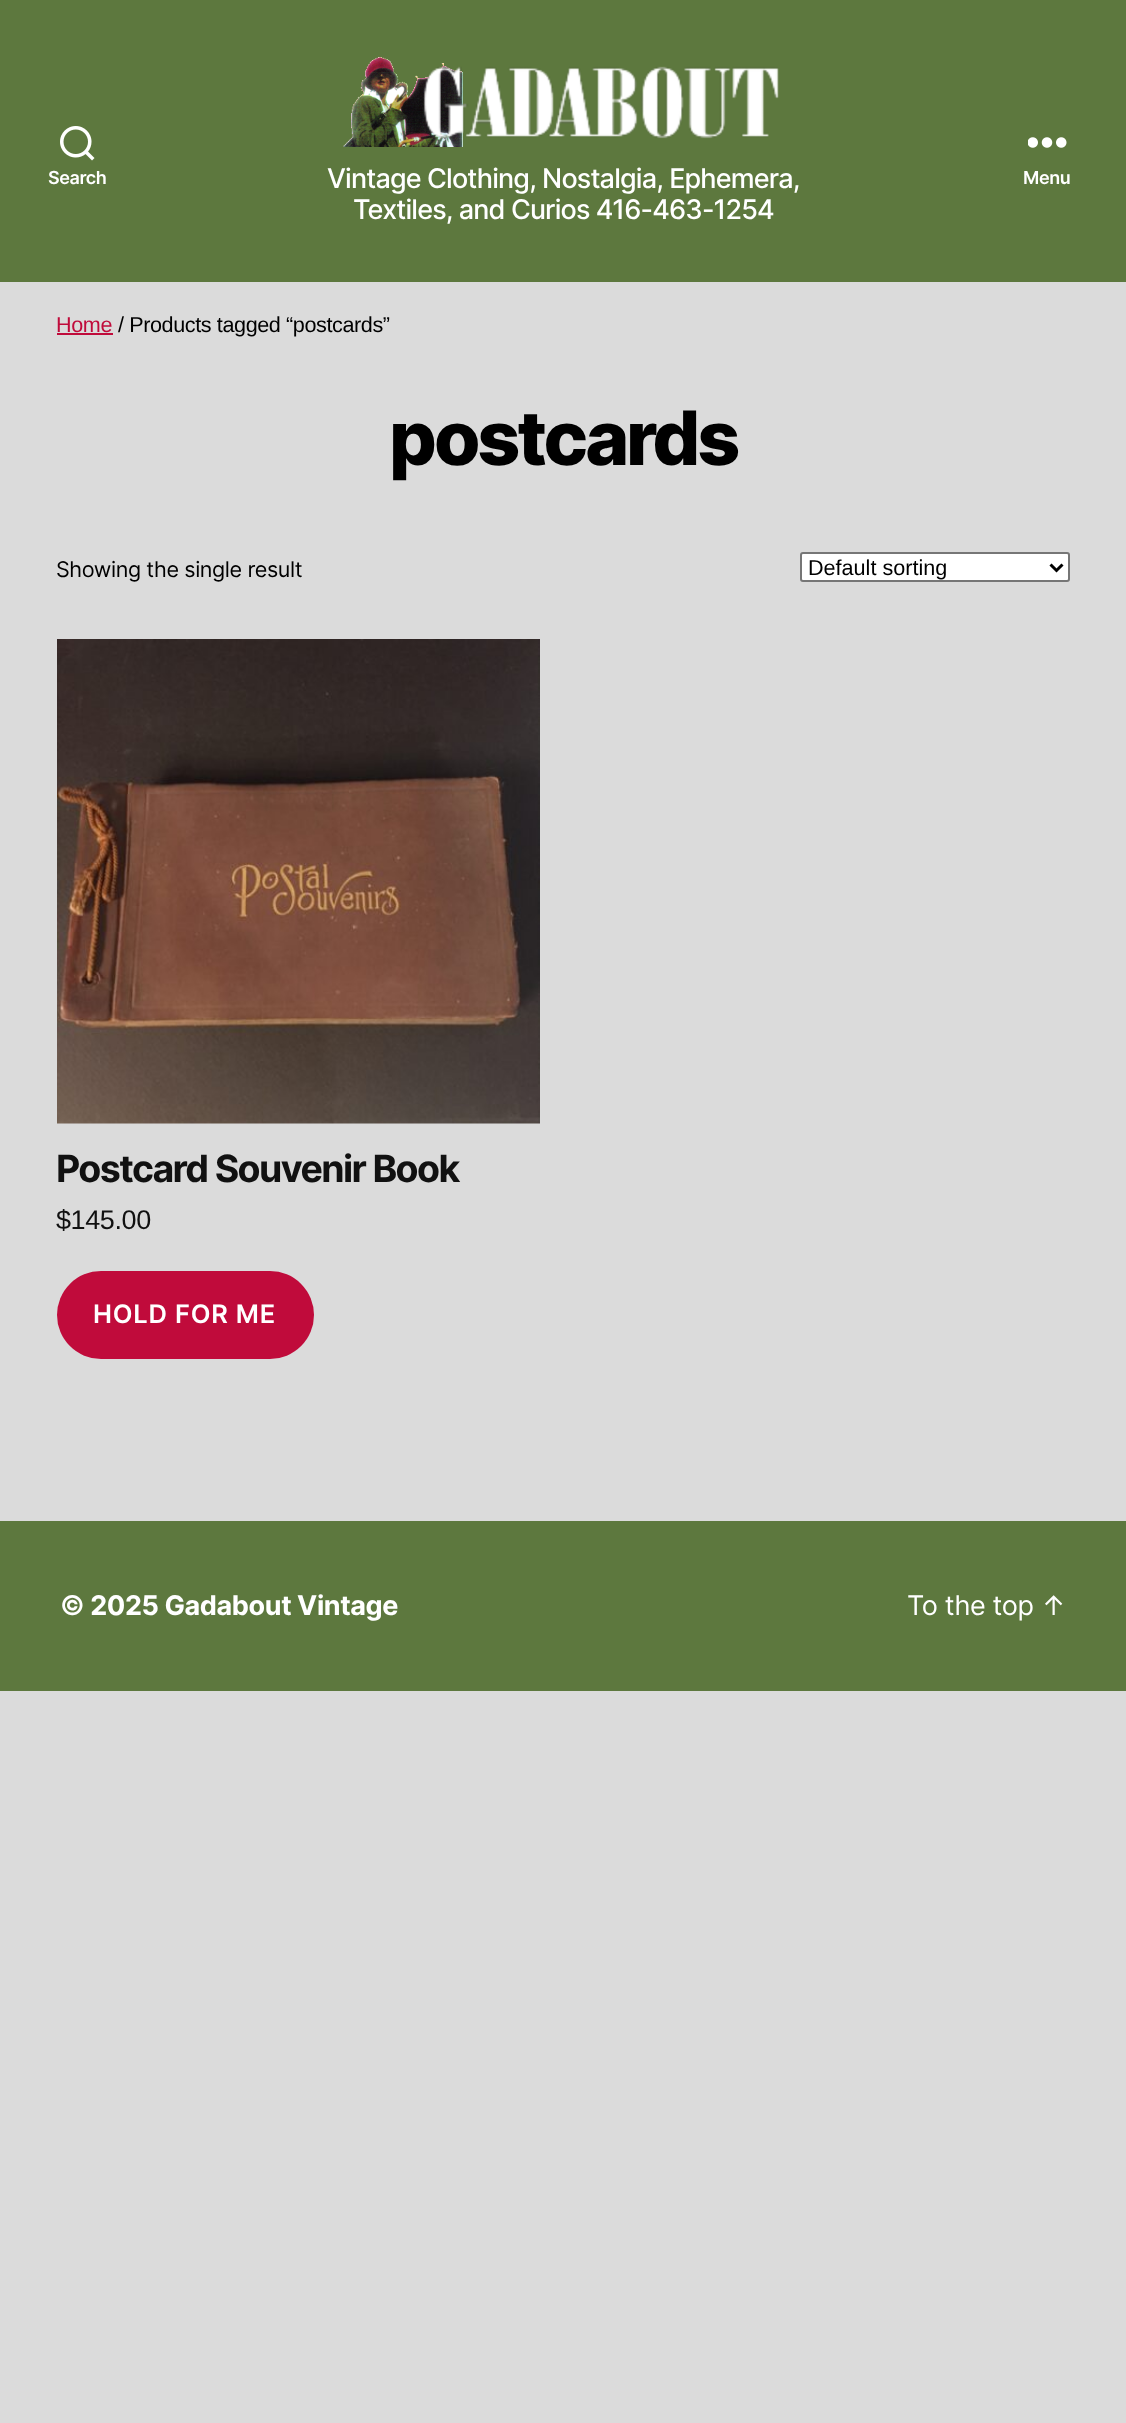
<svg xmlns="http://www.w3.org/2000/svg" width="1126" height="2423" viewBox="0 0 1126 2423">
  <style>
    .t1 { font: 600 18px Inter; letter-spacing: -0.4px; fill: #fff; }
    .t2 { font: 500 27px Inter; letter-spacing: -0.85px; fill: #fff; }
    .t3 { font: 21.6px Liberation Sans; letter-spacing: -0.4px; fill: #c00b3b; }
    .t4 { font: 21.6px Liberation Sans; letter-spacing: -0.4px; fill: #000; }
    .t5 { font: 800 75px Inter; letter-spacing: -3.1px; fill: #000; }
    .t6 { font: 21.6px Inter; letter-spacing: -0.4px; fill: #000; }
    .t7 { font: 21.6px Liberation Sans; fill: #000; }
    .t8 { font: bold 37.5px Inter; letter-spacing: -1.6px; fill: #111; }
    .t9 { font: 27px Liberation Sans; letter-spacing: -0.4px; fill: #111; }
    .t10 { font: 600 25.5px Inter; letter-spacing: 0.8px; fill: #fff; }
    .t11 { font: bold 27px Inter; letter-spacing: -0.4px; fill: #fff; }
    .t12 { font: 27px Inter; letter-spacing: -0.4px; fill: #fff; }
  </style>
  <rect width="100%" height="100%" fill="#dbdbdb"/>
  <rect x="0" y="0" width="1126" height="282" fill="#5d783e"/>
  <image x="60" y="126" width="35" height="35" href="images/1.png"/>
  <text x="48" y="184" class="t1">Search</text>
  <image x="343" y="57" width="436" height="90" href="images/2.png"/>
  <text x="327" y="188" class="t2">Vintage Clothing, Nostalgia, Ephemera,</text>
  <text x="353" y="219" class="t2">Textiles, and Curios 416-463-1254</text>
  <image x="1028" y="137" width="39" height="11" href="images/3.png"/>
  <text x="1023" y="184" class="t1">Menu</text>
  <text x="56" y="332" class="t3">Home</text>
  <rect x="57" y="333" width="56" height="2" fill="#c00b3b"/>
  <text x="118" y="332" class="t4">/ Products tagged “postcards”</text>
  <text x="389" y="465" class="t5">postcards</text>
  <text x="56" y="577" class="t6">Showing the single result</text>
  <rect x="801" y="553" width="268" height="28" rx="2" fill="#fff" stroke="#767676" stroke-width="2"/>
  <path d="M1050.5 564.5L1056.5 570.5L1062.5 564.5" fill="none" stroke="#000" stroke-width="3"/>
  <text x="808" y="575" class="t7">Default sorting</text>
  <image x="57" y="639" width="483" height="485" href="images/4.png"/>
  <text x="56" y="1182" class="t8">Postcard Souvenir Book</text>
  <text x="56" y="1229" class="t9">$145.00</text>
  <rect x="57" y="1271" width="257" height="88" rx="44" fill="#c00b3b"/>
  <text x="93" y="1323" class="t10">HOLD FOR ME</text>
  <rect x="0" y="1521" width="1126" height="170" fill="#5d783e"/>
  <text x="60" y="1615" class="t11">© 2025 Gadabout Vintage</text>
  <text x="907" y="1615" class="t12">To the top ↑</text>
</svg>
